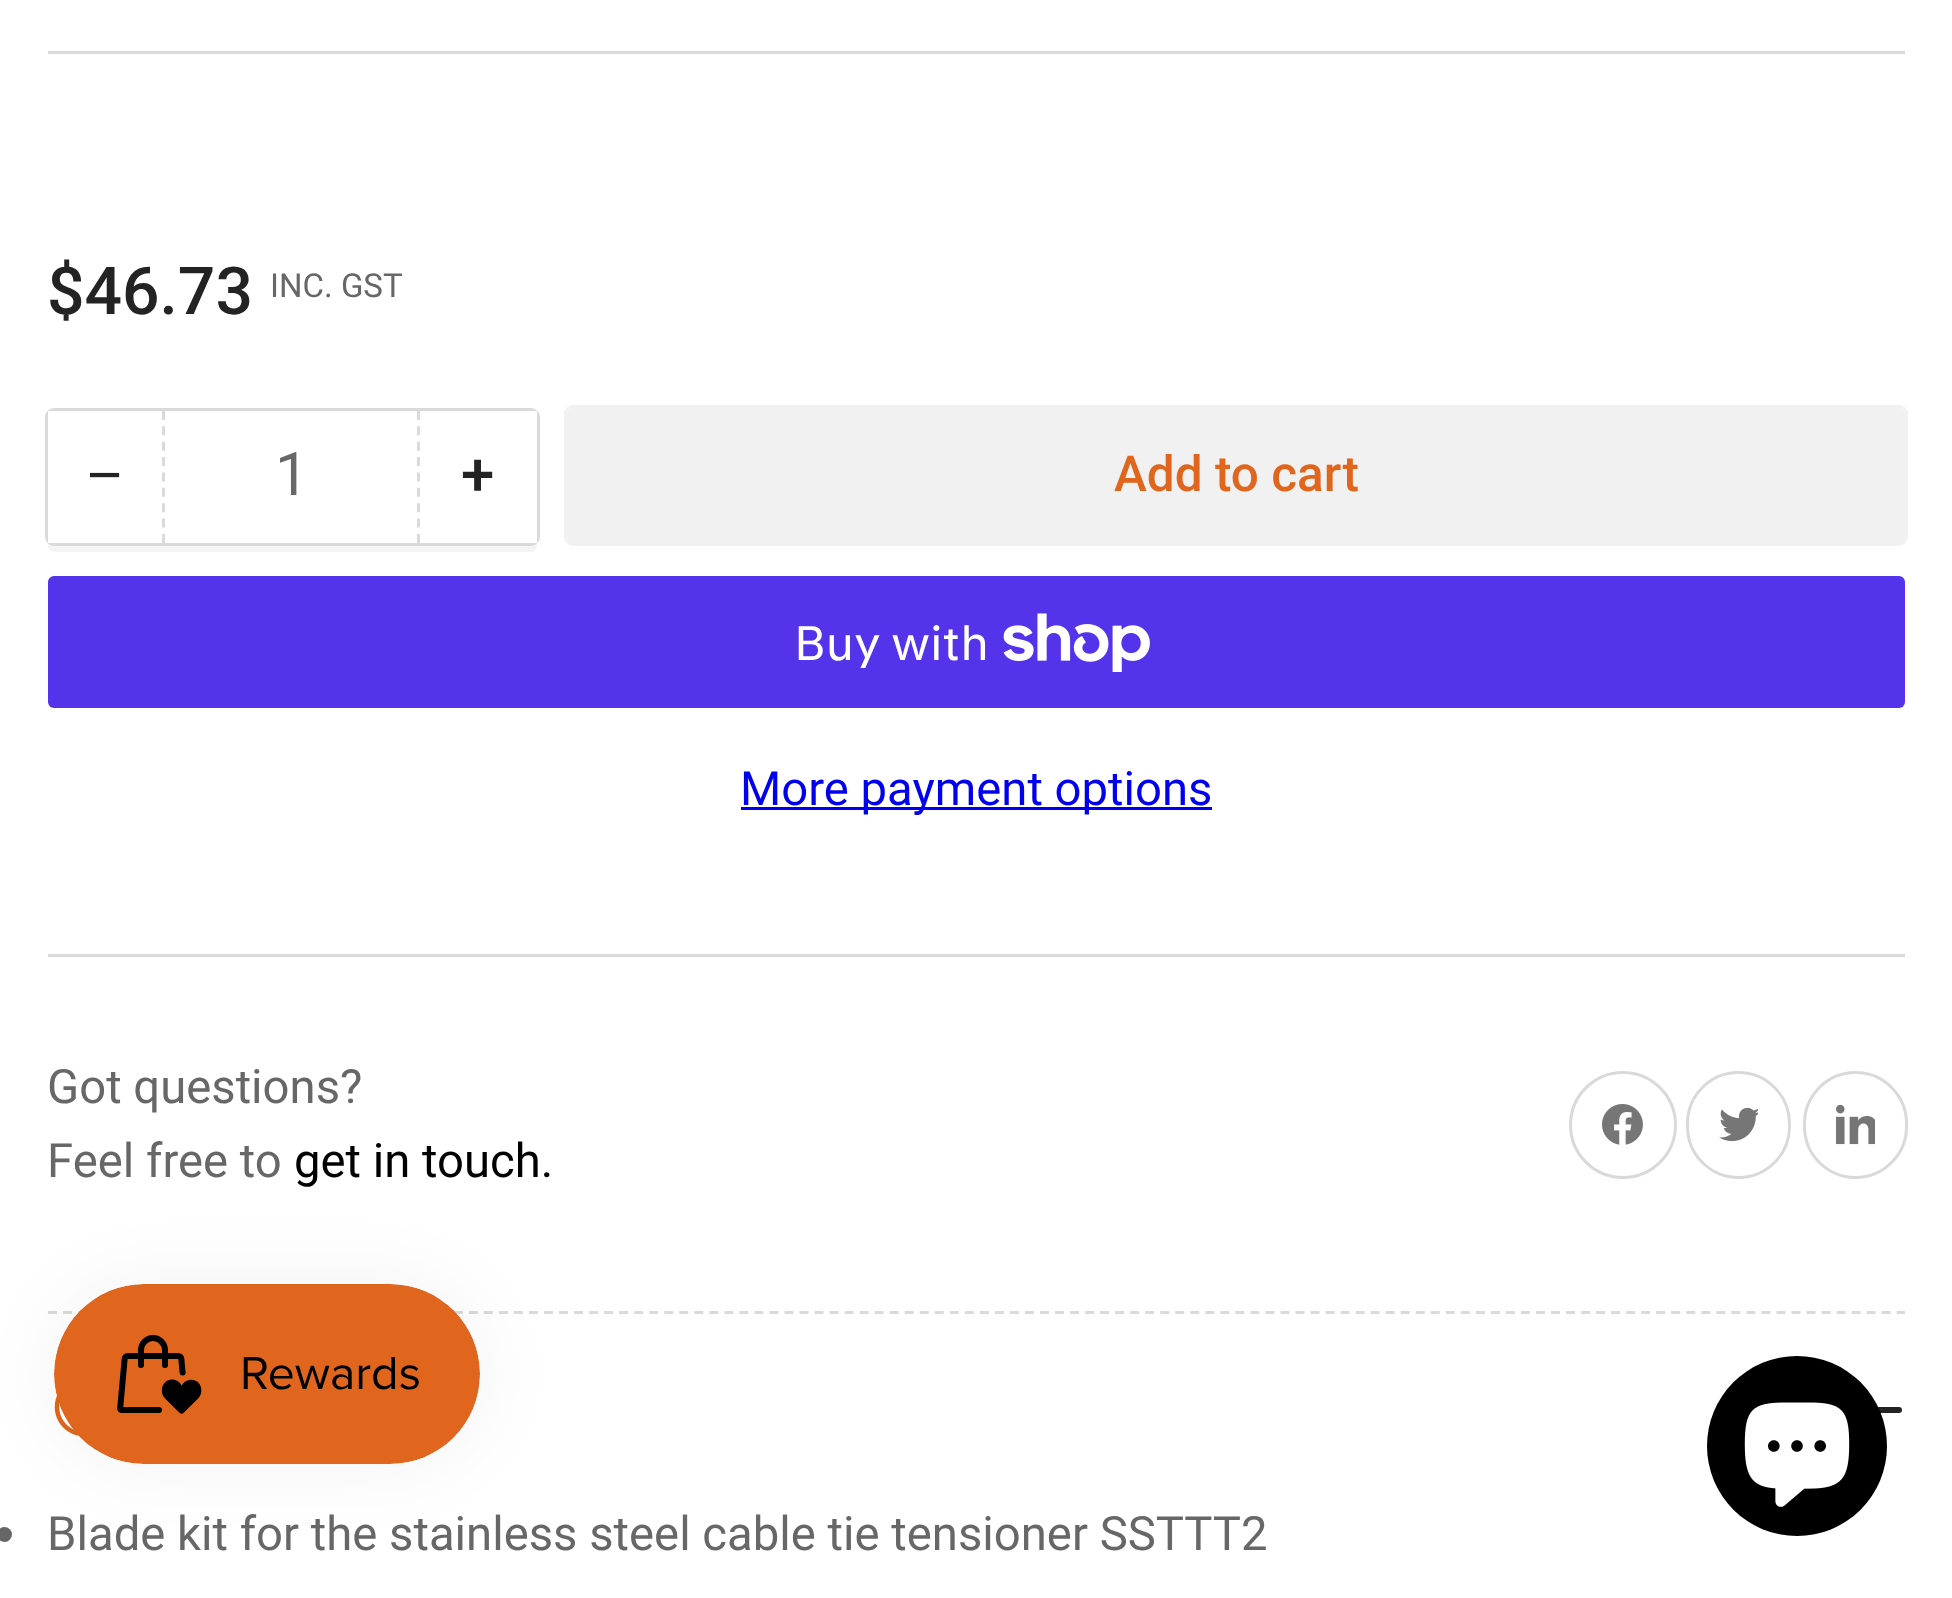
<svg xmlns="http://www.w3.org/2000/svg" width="1952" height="1598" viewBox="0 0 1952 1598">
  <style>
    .t1 { font: 500 66px Roboto; fill: #232323; }
    .t2 { font: 33px Roboto; fill: #676767; }
    .t3 { font: 60px Liberation Sans; fill: #232323; }
    .t4 { font: 60px Roboto; fill: #676767; }
    .t5 { font: 500 60px Roboto; fill: #232323; }
    .t6 { font: 500 49.5px Roboto; fill: #e0661d; }
    .t7 { font: 48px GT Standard; fill: #fff; }
    .t8 { font: 47.25px Roboto; fill: #00e; }
    .t9 { font: 47.25px Roboto; fill: #676767; }
    .t10 { font: 47.25px Roboto; fill: #000; }
  </style>
  <rect width="100%" height="100%" fill="#fff"/>
  <rect x="48" y="51" width="1857" height="3" fill="#dadada"/>
  <text x="47" y="314" class="t1">$46.73</text>
  <text x="270" y="297" class="t2">INC. GST</text>
  <path d="M48 537V546C48 549 51 552 54 552H531C534 552 537 549 537 546V537C537 540 534 543 531 543H54C51 543 48 540 48 537Z" fill="#f4f4f4"/>
  <rect x="46.5" y="409.5" width="492" height="135" rx="7.5" fill="none" stroke="#dadada" stroke-width="3"/>
  <rect x="48" y="411" width="5" height="132" fill="#fff"/>
  <text x="87" y="495" class="t3">−</text>
  <path d="M418.5 411V543" fill="none" stroke="#dadada" stroke-width="3" stroke-dasharray="9 6.36"/>
  <path d="M163.5 411V543" fill="none" stroke="#dadada" stroke-width="3" stroke-dasharray="9 6.36"/>
  <text x="275" y="495" class="t4">1</text>
  <rect x="532" y="411" width="5" height="132" fill="#fff"/>
  <text x="461" y="495" class="t5">+</text>
  <rect x="565.5" y="406.5" width="1341" height="138" rx="7.5" fill="none" stroke="#f1f1f1" stroke-width="3"/>
  <rect x="567" y="408" width="1338" height="135" rx="6" fill="#f1f1f1"/>
  <text x="1114" y="491" class="t6">Add to cart</text>
  <rect x="48" y="576" width="1857" height="132" rx="6" fill="#5433eb"/>
  <text x="794" y="660" class="t7">Buy with</text>
  <image x="1003" y="613" width="147" height="59" href="images/1.png"/>
  <rect x="741" y="807" width="471" height="3" fill="#00e"/>
  <text x="740" y="805" class="t8">More payment options</text>
  <rect x="48" y="954" width="1857" height="3" fill="#dadada"/>
  <text x="47" y="1103" class="t9">Got questions?</text>
  <text x="47" y="1177" class="t9">Feel free to</text>
  <text x="294" y="1177" class="t10">get in touch.</text>
  <circle cx="1623" cy="1125" r="52.5" fill="none" stroke="#d9d9d9" stroke-width="3"/>
  <image x="1602" y="1104" width="41" height="41" href="images/2.png"/>
  <rect x="1687.5" y="1072.5" width="102" height="105" rx="51" fill="none" stroke="#d9d9d9" stroke-width="3"/>
  <image x="1719" y="1107" width="39" height="35" href="images/3.png"/>
  <rect x="1804.5" y="1072.5" width="102" height="105" rx="51" fill="none" stroke="#d9d9d9" stroke-width="3"/>
  <image x="1836" y="1104" width="39" height="41" href="images/4.png"/>
  <path d="M48 1312.5H1905" fill="none" stroke="#dadada" stroke-width="3" stroke-dasharray="9 6.03"/>
  <image x="54" y="1396" width="25" height="40" href="images/5.png"/>
  <rect x="1875" y="1407" width="27" height="6" rx="3" fill="#232323"/>
  <circle cx="4.5" cy="1534.5" r="7.5" fill="#676767"/>
  <text x="47" y="1550" class="t9">Blade kit for the stainless steel cable tie tensioner SSTTT2</text>
  <rect x="54" y="1284" width="426" height="180" rx="90" fill="#0000000d" filter="blur(37.5px)"/>
  <image x="54" y="1284" width="426" height="180" href="images/6.png"/>
  <circle cx="1797" cy="1446" r="90" fill="#000"/>
  <image x="1744" y="1402" width="106" height="105" href="images/7.png"/>
</svg>
